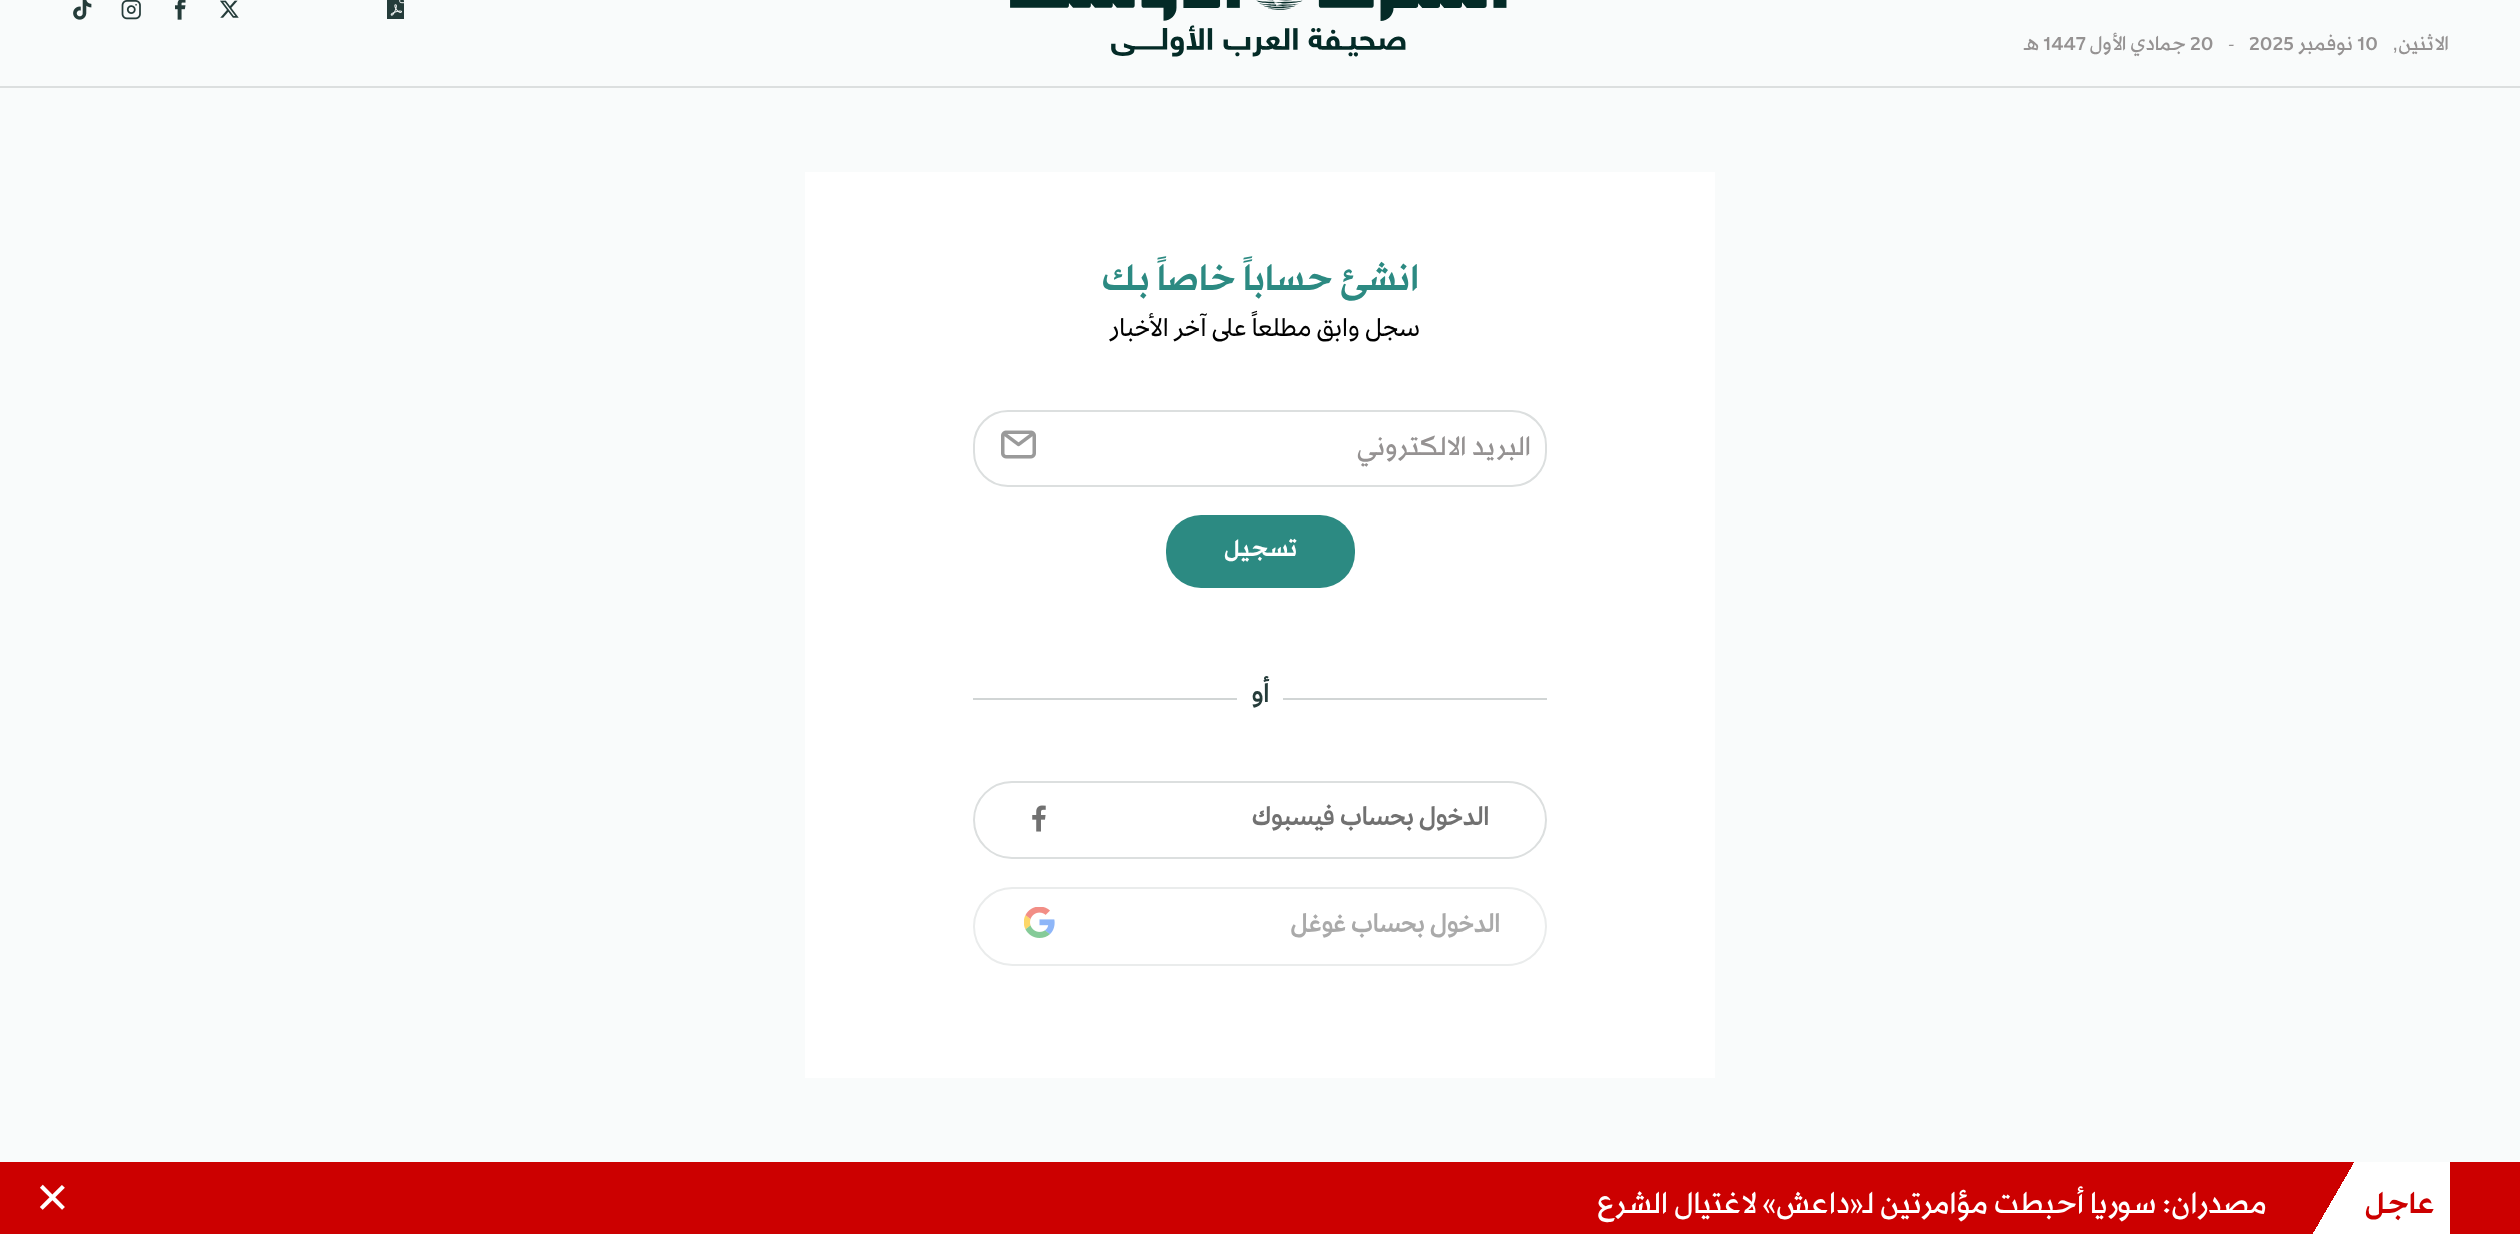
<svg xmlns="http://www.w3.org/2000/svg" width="2520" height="1234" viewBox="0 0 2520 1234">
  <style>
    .t1 { font: 21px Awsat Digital; direction: rtl; fill: #959292; }
    .t2 { font: 21px Awsat Digital; fill: #959292; }
    .t3 { font: 21px Liberation Sans; direction: rtl; fill: #959292; }
    .t4 { font: bold 38.5px Awsat Digital; direction: rtl; fill: #2c8a82; }
    .t5 { font: 28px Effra; direction: rtl; fill: #000; }
    .t6 { font: 28px Awsat Digital; direction: rtl; fill: #959292; }
    .t7 { font: bold 25px Awsat Digital; direction: rtl; fill: #fff; }
    .t8 { font: bold 28px Effra; direction: rtl; fill: #253c3a; }
    .t9 { font: bold 28px Effra; direction: rtl; fill: #717171; }
    .t10 { font: bold 28px Effra; direction: rtl; fill: #aaa; }
    .t11 { font: bold 31.5px Awsat Digital; direction: rtl; fill: #c00; }
    .t12 { font: 31.5px Awsat Digital; direction: rtl; fill: #fff; }
    .t13 { font: 56px Liberation Sans; fill: #fff; }
  </style>
  <defs>
    <linearGradient id="g1" gradientUnits="userSpaceOnUse" x1="2310" y1="1159" x2="2448" y2="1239"><stop offset="0.25" stop-color="#c00"/><stop offset="0.25" stop-color="#fff"/></linearGradient>
  </defs>
  <rect width="100%" height="100%" fill="#f9fbfb"/>
  <rect x="0" y="86" width="2520" height="2" fill="#dcdfdf"/>
  <text x="2449" y="50" class="t1">الاثنين</text>
  <text x="2357" y="50" class="t2">10</text>
  <text x="2353" y="50" class="t1">نوفمبر</text>
  <text x="2249" y="50" class="t2">2025</text>
  <text x="2228" y="50" class="t2">-</text>
  <text x="2190" y="50" class="t2">20</text>
  <text x="2186" y="50" class="t1">جمادي الأول</text>
  <text x="2043" y="50" class="t2">1447</text>
  <text x="2039" y="50" class="t1">هـ</text>
  <text x="2398" y="50" class="t3">,</text>
  <image x="1010" y="0" width="497" height="57" href="images/1.png"/>
  <image x="387" y="0" width="17" height="19" href="images/2.png"/>
  <image x="220" y="0" width="19" height="18" href="images/3.png"/>
  <image x="175" y="0" width="11" height="20" href="images/4.png"/>
  <image x="121" y="0" width="20" height="20" href="images/5.png"/>
  <image x="73" y="0" width="19" height="20" href="images/6.png"/>
  <rect x="805" y="172" width="910" height="906" fill="#fff"/>
  <text x="1419" y="290" class="t4">انشئ حساباً خاصاً بك</text>
  <text x="1420" y="336" class="t5">سجل وابق مطلعاً على آخر الأخبار</text>
  <rect x="974" y="411" width="572" height="75" rx="34" fill="none" stroke="#dcdfdf" stroke-width="2"/>
  <text x="1531" y="455" class="t6">البريد الالكتروني</text>
  <image x="1001" y="430" width="35" height="29" href="images/7.png"/>
  <rect x="1166" y="515" width="189" height="73" rx="35" fill="#2c8a82"/>
  <text x="1297" y="556" class="t7">تسجيل</text>
  <rect x="973" y="698" width="574" height="2" fill="#d1d5d5"/>
  <rect x="1237" y="698" width="46" height="2" fill="#fff"/>
  <text x="1269" y="702" class="t8">أو</text>
  <rect x="974" y="782" width="572" height="76" rx="38" fill="none" stroke="#dcdfdf" stroke-width="2"/>
  <text x="1489" y="825" class="t9">الدخول بحساب فيسبوك</text>
  <image x="1032" y="805" width="14" height="27" href="images/8.png"/>
  <rect x="974" y="888" width="572" height="77" rx="38.5" fill="none" stroke="#eaecec" stroke-width="2"/>
  <text x="1500" y="932" class="t10">الدخول بحساب غوغل</text>
  <image x="1024" y="907" width="31" height="31" href="images/9.png"/>
  <rect x="0" y="1162" width="2520" height="72" fill="#c00"/>
  <rect x="2313" y="1162" width="137" height="72" fill="url(#g1)"/>
  <text x="2435" y="1213" class="t11">عاجل</text>
  <text x="2267" y="1213" class="t12">مصدران: سوريا أحبطت مؤامرتين لـ«داعش» لاغتيال الشرع</text>
  <text x="36" y="1216" class="t13">×</text>
</svg>
